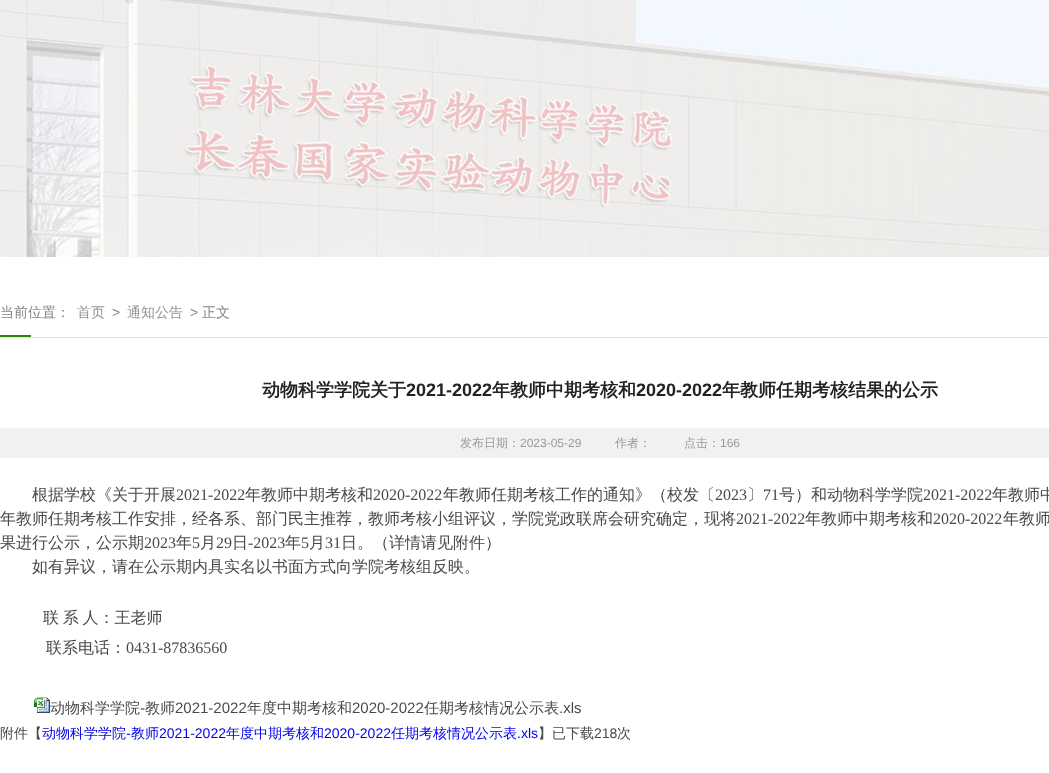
<svg xmlns="http://www.w3.org/2000/svg" width="1049" height="773" viewBox="0 0 1049 773">
  <style>
    .t1 { font: 500 14px WenQuanYi Zen Hei; fill: #838383; }
    .t2 { font: 500 14px WenQuanYi Zen Hei; fill: #949494; }
    .t3 { font: 14px Liberation Sans; fill: #838383; }
    .t4 { font: bold 18px WenQuanYi Zen Hei; fill: #232323; }
    .t5 { font: bold 18px Liberation Sans; fill: #232323; }
    .t6 { font: 500 12px WenQuanYi Zen Hei; fill: #9a9a9a; }
    .t7 { font: 12px Liberation Sans; fill: #9a9a9a; }
    .t8 { font: 500 16px WenQuanYi Zen Hei; fill: #494949; }
    .t9 { font: 16px Liberation Serif; fill: #494949; }
    .t10 { font: 500 15px WenQuanYi Zen Hei; fill: #494949; }
    .t11 { font: 15px Liberation Sans; fill: #494949; }
    .t12 { font: 500 14px WenQuanYi Zen Hei; fill: #494949; }
    .t13 { font: 500 14px WenQuanYi Zen Hei; fill: #00e; }
    .t14 { font: 14px Liberation Sans; fill: #00e; }
    .t15 { font: 14px Liberation Sans; fill: #494949; }
  </style>
  <rect width="100%" height="100%" fill="#fff"/>
  <image x="0" y="0" width="1049" height="257" href="images/1.png"/>
  <rect x="0" y="335" width="31" height="2" fill="#2d8304"/>
  <rect x="0" y="337" width="1049" height="1" fill="#e3e3e3"/>
  <text x="0" y="317" class="t1">当前位置：</text>
  <text x="77" y="317" class="t2">首页</text>
  <text x="112" y="317" class="t3">&gt;</text>
  <text x="127" y="317" class="t2">通知公告</text>
  <text x="190" y="317" class="t3">&gt;</text>
  <text x="202" y="317" class="t1">正文</text>
  <text x="262" y="396" class="t4">动物科学学院关于</text>
  <text x="406" y="396" class="t5">2021-2022</text>
  <text x="492" y="396" class="t4">年教师中期考核和</text>
  <text x="636" y="396" class="t5">2020-2022</text>
  <text x="722" y="396" class="t4">年教师任期考核结果的公示</text>
  <rect x="0" y="428" width="1049" height="30" fill="#f1f1f1"/>
  <text x="460" y="447" class="t6">发布日期：</text>
  <text x="520" y="447" class="t7">2023-05-29</text>
  <text x="615" y="447" class="t6">作者：</text>
  <text x="684" y="447" class="t6">点击：</text>
  <text x="720" y="447" class="t7">166</text>
  <text x="32" y="500" class="t8">根据学校《关于开展</text>
  <text x="176" y="500" class="t9">2021-2022</text>
  <text x="245" y="500" class="t8">年教师中期考核和</text>
  <text x="373" y="500" class="t9">2020-2022</text>
  <text x="443" y="500" class="t8">年教师任期考核工作的通知》（</text>
  <text x="667" y="500" class="t8">校发〔</text>
  <text x="715" y="500" class="t9">2023</text>
  <text x="747" y="500" class="t8">〕</text>
  <text x="763" y="500" class="t9">71</text>
  <text x="779" y="500" class="t8">号</text>
  <text x="795" y="500" class="t8">）和动物科学学院</text>
  <text x="923" y="500" class="t9">2021-2022</text>
  <text x="992" y="500" class="t8">年教师中</text>
  <text x="0" y="524" class="t8">年教师任期考核工作安排，经各系、部门民主推荐，教师考核小组评议，学院党政联席会研究确定，现将</text>
  <text x="736" y="524" class="t9">2021-2022</text>
  <text x="805" y="524" class="t8">年教师中期考核和</text>
  <text x="933" y="524" class="t9">2020-2022</text>
  <text x="1003" y="524" class="t8">年教师</text>
  <text x="0" y="548" class="t8">果进行公示，公示期</text>
  <text x="144" y="548" class="t9">2023</text>
  <text x="176" y="548" class="t8">年</text>
  <text x="192" y="548" class="t9">5</text>
  <text x="200" y="548" class="t8">月</text>
  <text x="216" y="548" class="t9">29</text>
  <text x="232" y="548" class="t8">日</text>
  <text x="248" y="548" class="t9">-2023</text>
  <text x="285" y="548" class="t8">年</text>
  <text x="301" y="548" class="t9">5</text>
  <text x="309" y="548" class="t8">月</text>
  <text x="325" y="548" class="t9">31</text>
  <text x="341" y="548" class="t8">日。（详情请见附件）</text>
  <text x="32" y="572" class="t8">如有异议，请在公示期内具实名以书面方式向学院考核组反映。</text>
  <text x="43" y="623" word-spacing="-1" class="t8">联 系 人：王老师</text>
  <text x="46" y="653" class="t8">联系电话：</text>
  <text x="126" y="653" class="t9">0431-87836560</text>
  <image x="34" y="697" width="16" height="16" href="images/2.png"/>
  <text x="50" y="713" class="t10">动物科学学院</text>
  <text x="140" y="713" class="t11">-</text>
  <text x="145" y="713" class="t10">教师</text>
  <text x="175" y="713" class="t11">2021-2022</text>
  <text x="247" y="713" class="t10">年度中期考核和</text>
  <text x="352" y="713" class="t11">2020-2022</text>
  <text x="424" y="713" class="t10">任期考核情况公示表</text>
  <text x="559" y="713" class="t11">.xls</text>
  <text x="0" y="738" class="t12">附件【</text>
  <text x="42" y="738" class="t13">动物科学学院</text>
  <text x="126" y="738" class="t14">-</text>
  <text x="131" y="738" class="t13">教师</text>
  <text x="159" y="738" class="t14">2021-2022</text>
  <text x="226" y="738" class="t13">年度中期考核和</text>
  <text x="324" y="738" class="t14">2020-2022</text>
  <text x="391" y="738" class="t13">任期考核情况公示表</text>
  <text x="517" y="738" class="t14">.xls</text>
  <text x="538" y="738" class="t12">】已下载</text>
  <text x="594" y="738" class="t15">218</text>
  <text x="617" y="738" class="t12">次</text>
</svg>
